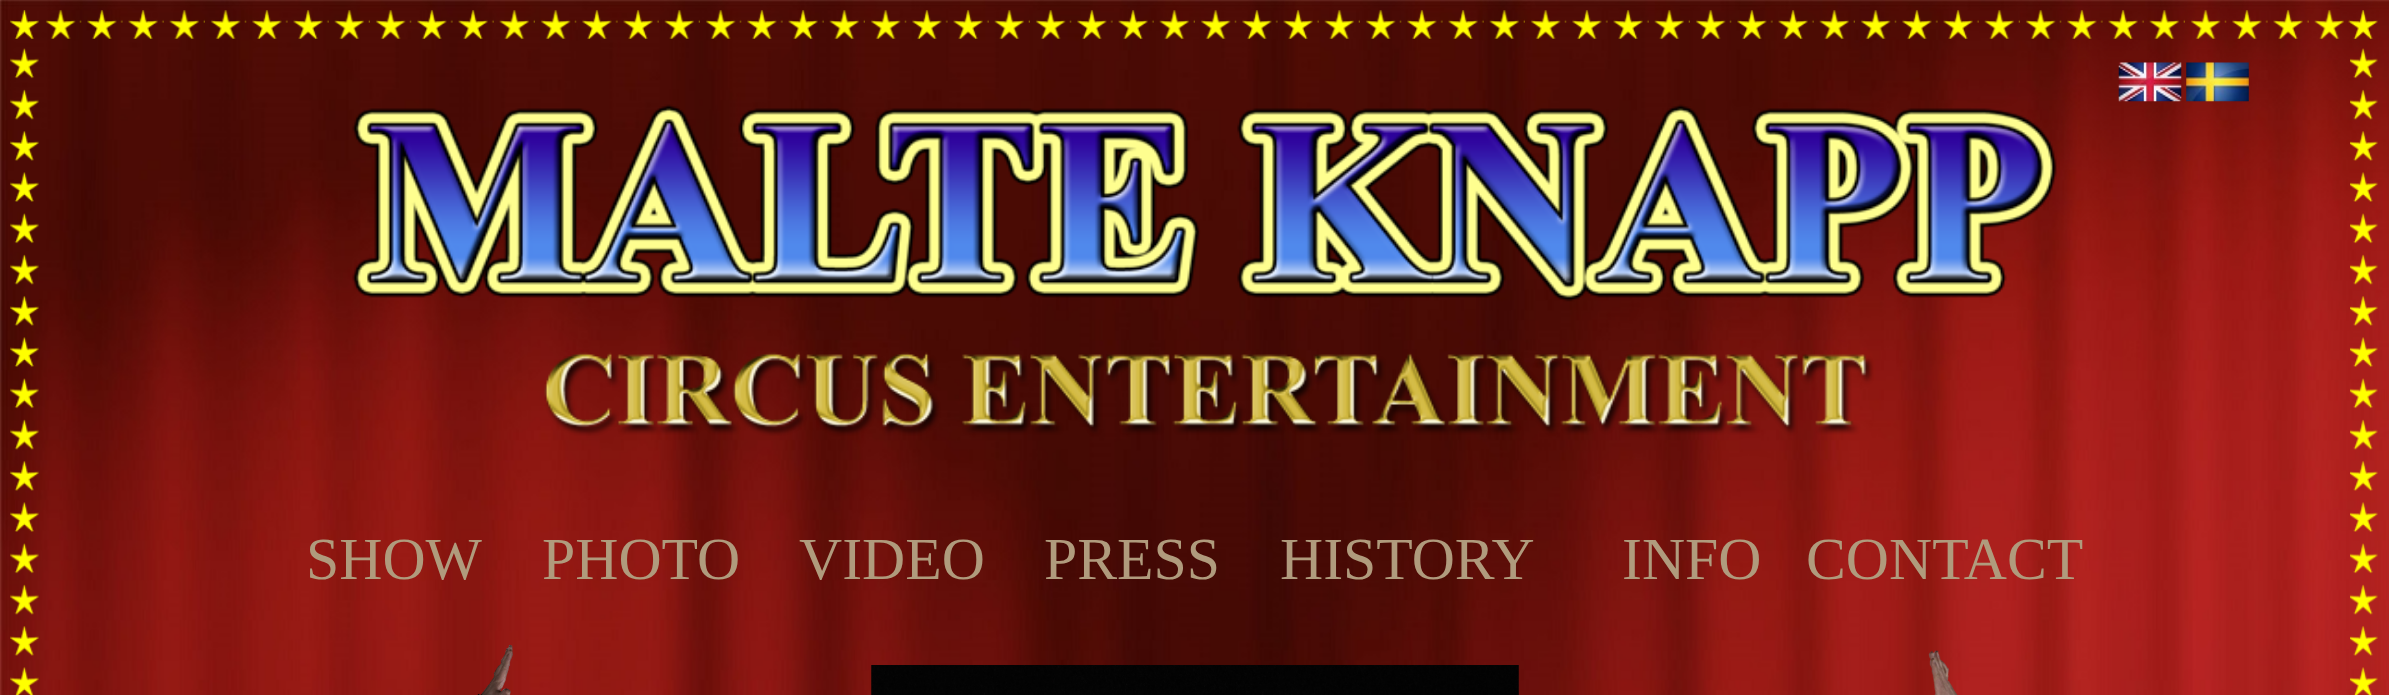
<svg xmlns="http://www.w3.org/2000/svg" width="2389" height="695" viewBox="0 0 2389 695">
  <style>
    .t1 { font: 59.75px Liberation Serif; fill: #b09b7d; }
  </style>
  <rect width="100%" height="100%" fill="#fff"/>
  <image x="0" y="0" width="2389" height="695" href="images/1.png"/>
  <image x="10" y="10" width="2368" height="685" href="images/2.png"/>
  <image x="2118" y="62" width="64" height="40" href="images/3.png"/>
  <image x="2186" y="62" width="63" height="40" href="images/4.png"/>
  <image x="352" y="104" width="1705" height="332" href="images/5.png"/>
  <text x="306" y="579" class="t1">SHOW</text>
  <text x="542" y="579" class="t1">PHOTO</text>
  <text x="799" y="579" class="t1">VIDEO</text>
  <text x="1044" y="579" class="t1">PRESS</text>
  <text x="1280" y="579" class="t1">HISTORY</text>
  <text x="1622" y="579" class="t1">INFO</text>
  <text x="1806" y="579" class="t1">CONTACT</text>
  <image x="477" y="645" width="36" height="50" href="images/6.png"/>
  <image x="871" y="665" width="648" height="30" href="images/7.png"/>
  <image x="1928" y="650" width="30" height="45" href="images/8.png"/>
</svg>
